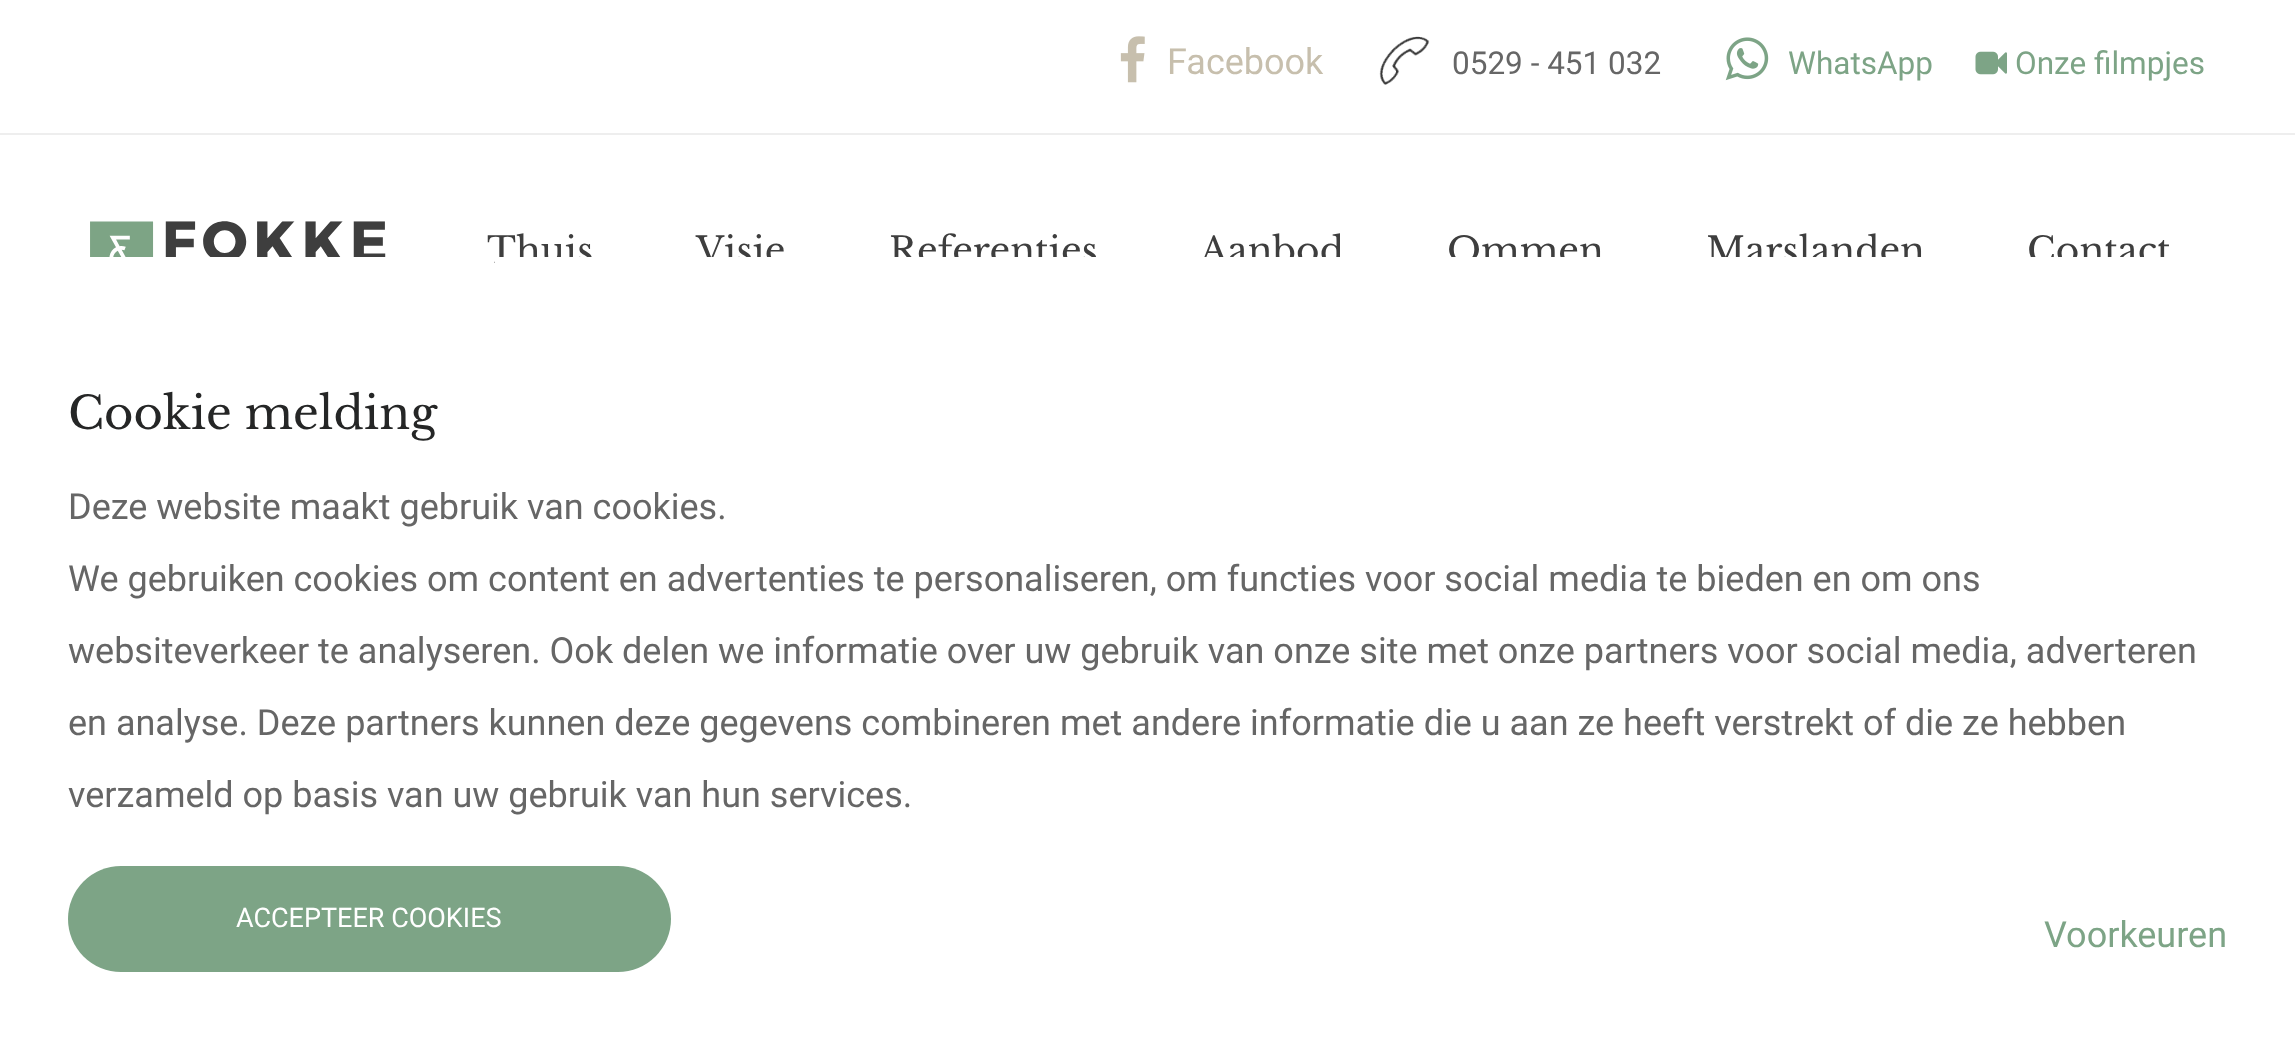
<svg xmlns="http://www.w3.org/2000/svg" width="2295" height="1039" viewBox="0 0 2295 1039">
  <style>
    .t1 { font: 36px Roboto; fill: #c7bfad; }
    .t2 { font: 31.5px Roboto; fill: #666; }
    .t3 { font: 31.5px Roboto; fill: #7da486; }
    .t4 { font: 36px Libre Baskerville; fill: #3e3e3e; }
    .t5 { font: 45px Libre Baskerville; fill: #252626; }
    .t6 { font: 36px Roboto; fill: #666; }
    .t7 { font: 27px Roboto; fill: #fff; }
    .t8 { font: 36px Roboto; fill: #7da486; }
  </style>
  <rect width="100%" height="100%" fill="#fff"/>
  <rect x="0" y="133" width="2295" height="2" fill="#eee"/>
  <image x="1120" y="36" width="25" height="47" href="images/1.png"/>
  <text x="1167" y="74" class="t1">Facebook</text>
  <image x="1379" y="36" width="51" height="49" href="images/2.png"/>
  <text x="1452" y="74" class="t2">0529 - 451 032</text>
  <image x="1725" y="37" width="44" height="44" href="images/3.png"/>
  <text x="1788" y="74" class="t3">WhatsApp</text>
  <image x="1975" y="51" width="32" height="24" href="images/4.png"/>
  <text x="2015" y="74" class="t3">Onze filmpjes</text>
  <image x="90" y="221" width="296" height="36" href="images/5.png"/>
  <text x="487" y="263" class="t4">Thuis</text>
  <text x="696" y="263" class="t4">Visie</text>
  <text x="889" y="263" class="t4">Referenties</text>
  <text x="1200" y="263" class="t4">Aanbod</text>
  <text x="1447" y="263" class="t4">Ommen</text>
  <text x="1706" y="263" class="t4">Marslanden</text>
  <text x="2027" y="263" class="t4">Contact</text>
  <rect x="495" y="257" width="1676" height="7" fill="#fff"/>
  <text x="68" y="429" class="t5">Cookie melding</text>
  <text x="68" y="519" class="t6">Deze website maakt gebruik van cookies.</text>
  <text x="68" y="591" class="t6">We gebruiken cookies om content en advertenties te personaliseren, om functies voor social media te bieden en om ons</text>
  <text x="68" y="663" class="t6">websiteverkeer te analyseren. Ook delen we informatie over uw gebruik van onze site met onze partners voor social media, adverteren</text>
  <text x="68" y="735" class="t6">en analyse. Deze partners kunnen deze gegevens combineren met andere informatie die u aan ze heeft verstrekt of die ze hebben</text>
  <text x="68" y="807" class="t6">verzameld op basis van uw gebruik van hun services.</text>
  <rect x="68" y="866" width="603" height="106" rx="53" fill="#7da486"/>
  <text x="236" y="927" class="t7">ACCEPTEER COOKIES</text>
  <text x="2044" y="947" class="t8">Voorkeuren</text>
</svg>
